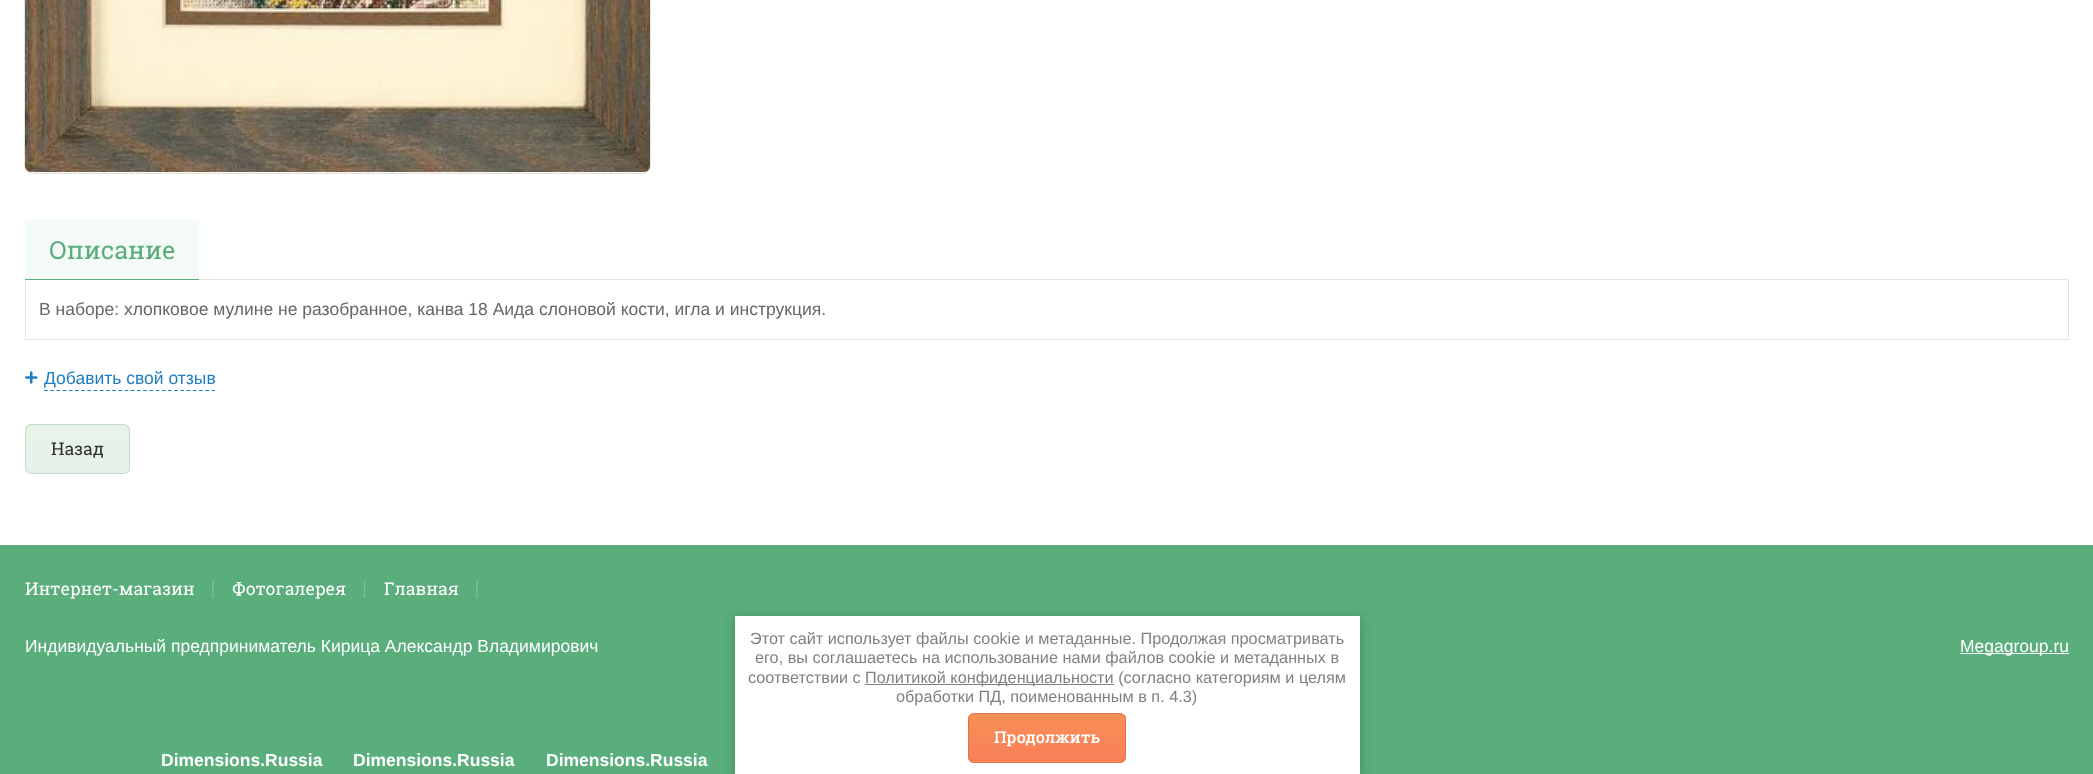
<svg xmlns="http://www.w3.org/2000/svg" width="2093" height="774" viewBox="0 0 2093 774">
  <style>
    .t1 { font: 25px Roboto Slab; fill: #59ae7c; }
    .t2 { font: 17.5px Liberation Sans; fill: #666; }
    .t3 { font: 17.5px Liberation Sans; fill: #1e7dbf; }
    .t4 { font: 17.5px Roboto Slab; fill: #333; }
    .t5 { font: 17.5px Roboto Slab; fill: #fff; }
    .t6 { font: 17.5px Liberation Sans; fill: #fff; }
    .t7 { font: bold 17.5px Liberation Sans; fill: #fff; }
    .t8 { font: 16.25px Liberation Sans; fill: #808080; }
    .t9 { font: 500 16.25px Roboto Slab; fill: #fff; }
  </style>
  <defs>
    <clipPath id="clip1"><rect x="25" y="424" width="105" height="50" rx="6"/></clipPath>
    <linearGradient id="g1" gradientUnits="userSpaceOnUse" x1="78" y1="425" x2="78" y2="473"><stop offset="0" stop-color="#e8f3e8"/><stop offset="1" stop-color="#e5f1ea"/></linearGradient>
    <clipPath id="clip2"><rect x="968" y="713" width="158" height="50" rx="6"/></clipPath>
    <linearGradient id="g2" gradientUnits="userSpaceOnUse" x1="1047" y1="714" x2="1047" y2="761"><stop offset="0" stop-color="#f99054"/><stop offset="1" stop-color="#f87f5a"/></linearGradient>
    <linearGradient id="g3" gradientUnits="userSpaceOnUse" x1="1047" y1="761" x2="1047" y2="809"><stop offset="0" stop-color="#f99054"/><stop offset="1" stop-color="#f87f5a"/></linearGradient>
  </defs>
  <rect width="100%" height="100%" fill="#fff"/>
  <rect x="24.5" y="-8.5" width="626" height="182" rx="7.5" fill="none" stroke="#e7e4d8"/>
  <image x="25" y="0" width="625" height="173" href="images/1.png"/>
  <rect x="25" y="219" width="174" height="60" fill="#f4faf7"/>
  <rect x="25.5" y="279.5" width="2043" height="60" fill="none" stroke="#e7e4d8"/>
  <rect x="25" y="279" width="174" height="1" fill="#59ae7c"/>
  <text x="49" y="259" class="t1">Описание</text>
  <text x="39" y="315" class="t2">В наборе: хлопковое мулине не разобранное, канва 18 Аида слоновой кости, игла и инструкция.</text>
  <path d="M44 390.5H215" fill="none" stroke="#1e7dbf" stroke-width="1.2" stroke-dasharray="3.75 2.45"/>
  <image x="25" y="371" width="13" height="13" href="images/2.png"/>
  <text x="44" y="384" class="t3">Добавить свой отзыв</text>
  <g clip-path="url(#clip1)">
    <rect x="25" y="425" width="105" height="48" fill="url(#g1)"/>
  </g>
  <rect x="25.5" y="424.5" width="104" height="49" rx="5.5" fill="none" stroke="#c0dcca"/>
  <text x="51" y="455" class="t4">Назад</text>
  <rect x="0" y="545" width="2093" height="229" fill="#59ae7c"/>
  <text x="25" y="595" class="t5">Интернет-магазин</text>
  <path d="M213 581V597.5" fill="none" stroke="#abd4b5" stroke-width="1.2" stroke-dasharray="1.25 1.25"/>
  <text x="232" y="595" class="t5">Фотогалерея</text>
  <path d="M364.5 581V597.5" fill="none" stroke="#abd4b5" stroke-width="1.2" stroke-dasharray="1.25 1.25"/>
  <text x="384" y="595" class="t5">Главная</text>
  <path d="M477 581V597.5" fill="none" stroke="#abd4b5" stroke-width="1.2" stroke-dasharray="1.25 1.25"/>
  <text x="25" y="652" class="t6">Индивидуальный предприниматель Кирица Александр Владимирович</text>
  <text x="161" y="766" class="t7">Dimensions.Russia</text>
  <text x="353" y="766" class="t7">Dimensions.Russia</text>
  <text x="546" y="766" class="t7">Dimensions.Russia</text>
  <rect x="1960" y="653" width="109" height="1" fill="#fff"/>
  <text x="1960" y="652" class="t6">Megagroup.ru</text>
  <rect x="735" y="618" width="625" height="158" fill="#0000003b" filter="blur(6px)"/>
  <rect x="735" y="616" width="625" height="158" fill="#fff"/>
  <text x="750" y="644" class="t8">Этот сайт использует файлы cookie и метаданные. Продолжая просматривать</text>
  <text x="755" y="663" class="t8">его, вы соглашаетесь на использование нами файлов cookie и метаданных в</text>
  <text x="748" y="683" class="t8">соответствии с</text>
  <rect x="865" y="684" width="249" height="1" fill="#808080"/>
  <text x="865" y="683" class="t8">Политикой конфиденциальности (согласно категориям и целям</text>
  <text x="896" y="702" class="t8">обработки ПД, поименованным в п. 4.3)</text>
  <g clip-path="url(#clip2)">
    <rect x="968" y="714" width="158" height="47" fill="url(#g2)"/>
    <rect x="968" y="761" width="158" height="2" fill="url(#g3)"/>
  </g>
  <rect x="968.5" y="713.5" width="157" height="49" rx="5.5" fill="none" stroke="#e46f48"/>
  <text x="994" y="743" class="t9">Продолжить</text>
</svg>
